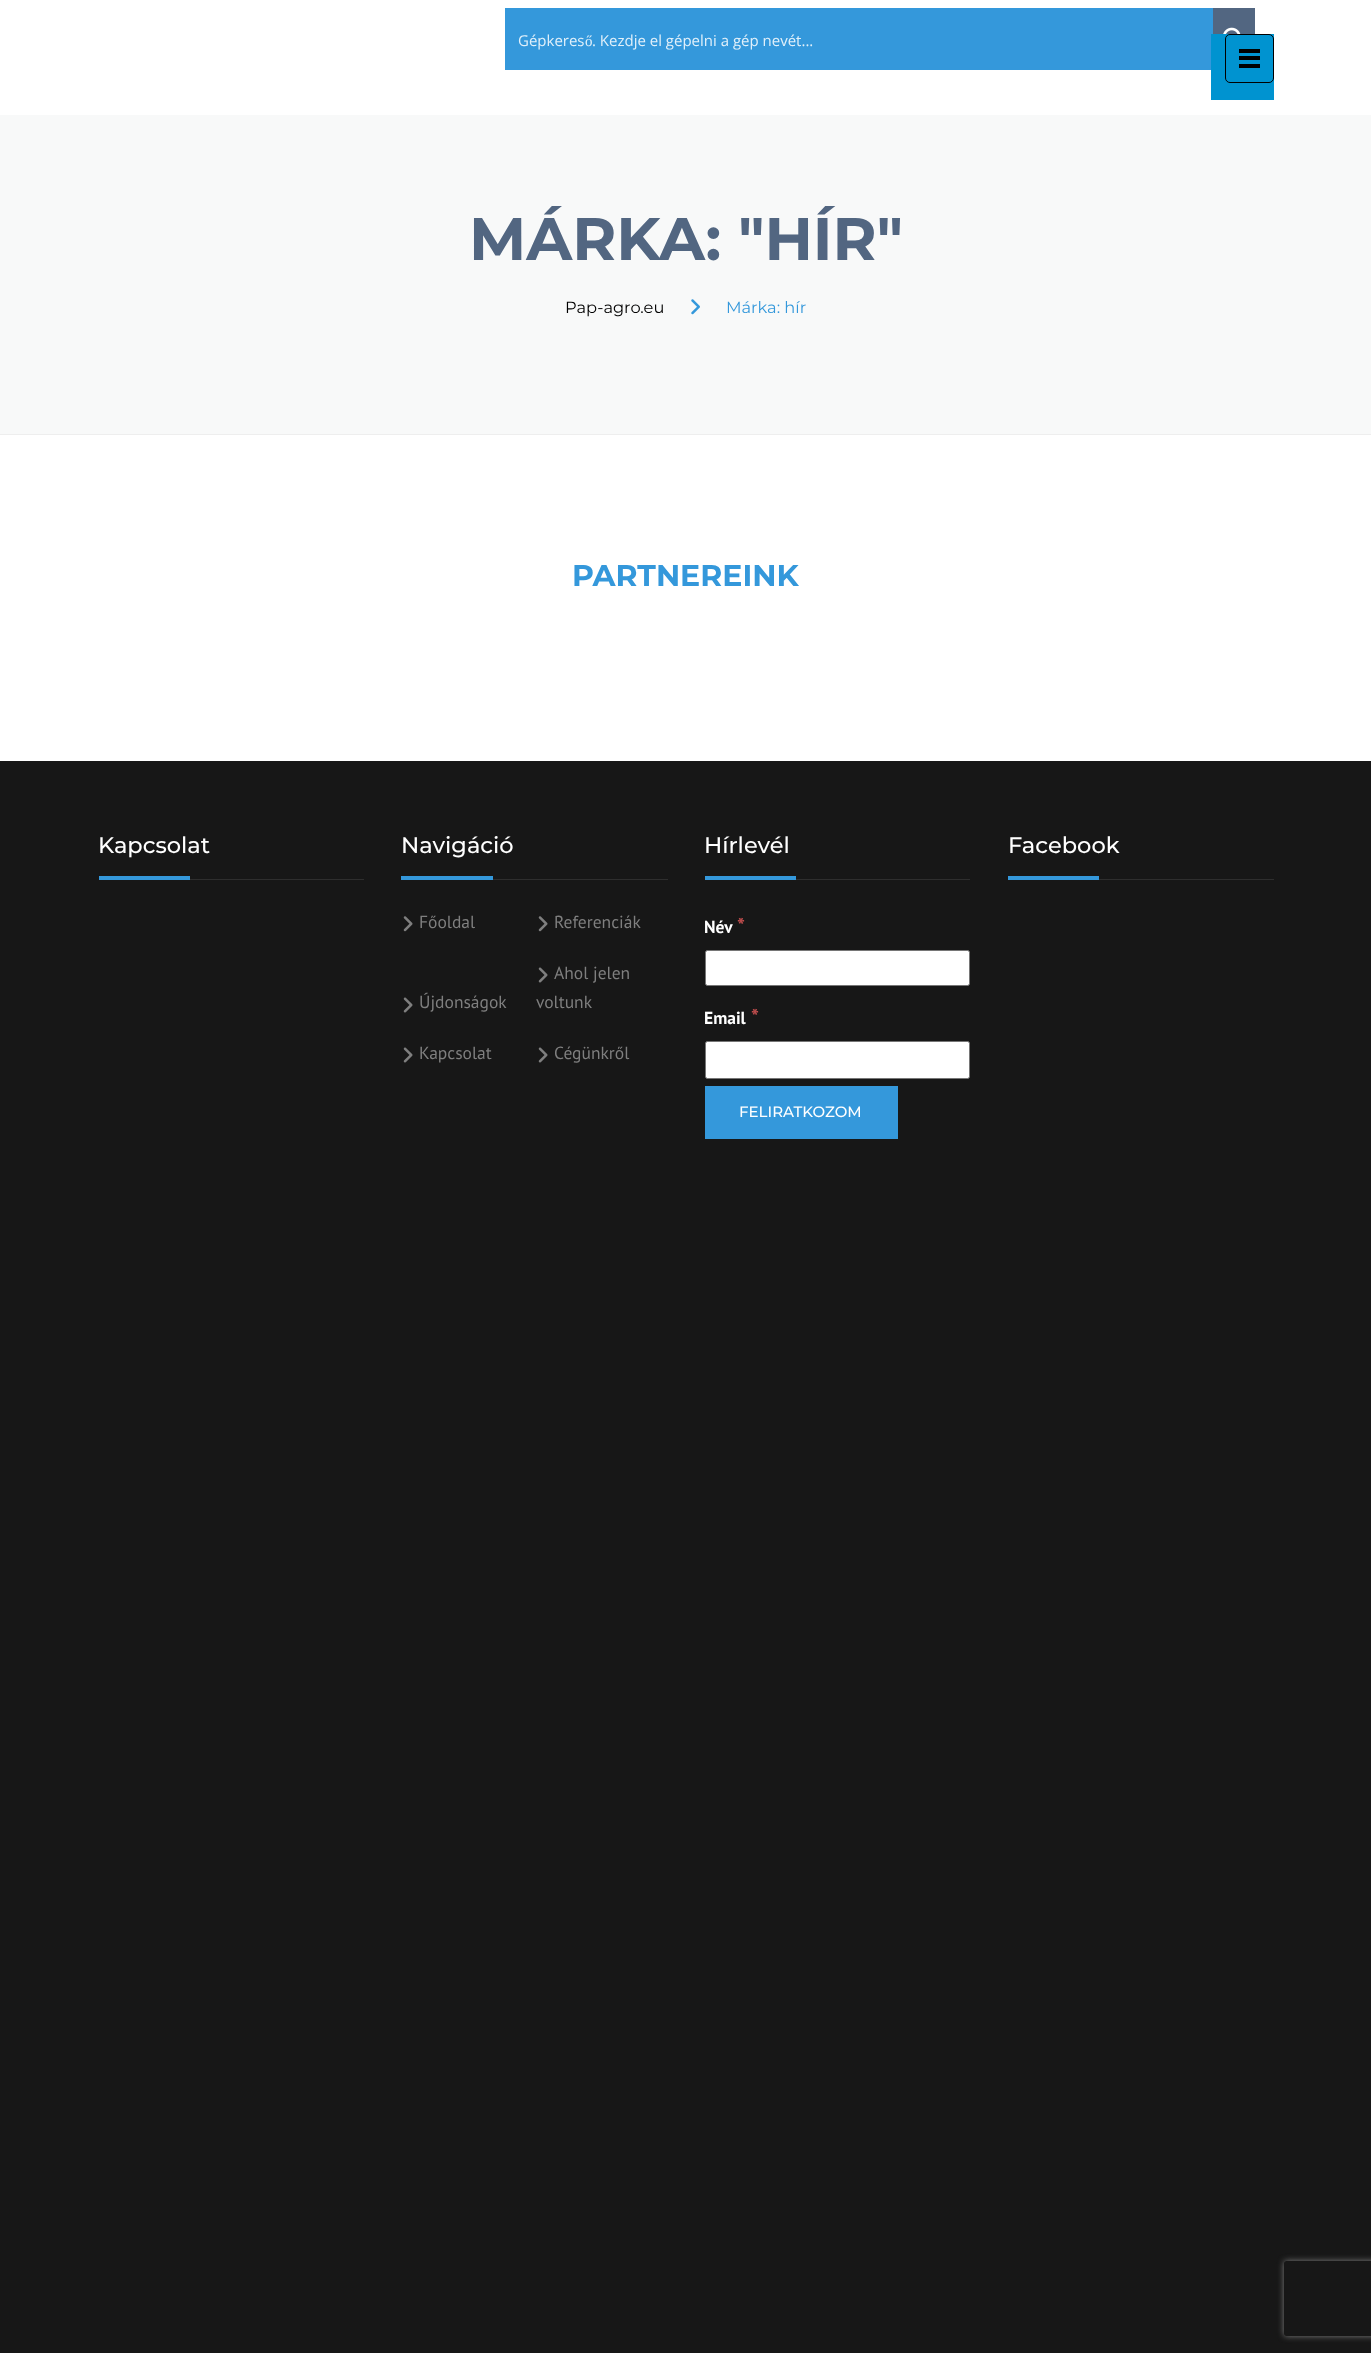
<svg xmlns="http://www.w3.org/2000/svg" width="1371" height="2353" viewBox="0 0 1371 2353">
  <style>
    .t1 { font: 15px Open Sans; fill: #e1f0fa; }
    .t2 { font: 15px Liberation Serif; fill: #e1f0fa; }
    .t3 { font: bold 60px Montserrat; fill: #526681; }
    .t4 { font: 16.25px Montserrat; fill: #000; }
    .t5 { font: 16.25px Montserrat; fill: #3498db; }
    .t6 { font: bold 30px Montserrat; fill: #3498db; }
    .t7 { font: 500 22.5px Montserrat; fill: #fff; }
    .t8 { font: 17.5px PT Sans; fill: #7f7f7f; }
    .t9 { font: bold 17.5px PT Sans; fill: #fff; }
    .t10 { font: bold 21px PT Sans; fill: #bf4d4d; }
    .t11 { font: 500 15px Montserrat; fill: #fff; }
  </style>
  <defs>
    <clipPath id="clip1"><path d="M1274 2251H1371V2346H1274ZM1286.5 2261H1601.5C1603 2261 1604 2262 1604 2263.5V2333.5C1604 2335 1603 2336 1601.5 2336H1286.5C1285 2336 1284 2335 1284 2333.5V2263.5C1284 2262 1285 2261 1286.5 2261Z" clip-rule="evenodd"/></clipPath>
  </defs>
  <rect width="100%" height="100%" fill="#fff"/>
  <rect x="505" y="8" width="708" height="62" fill="#3498db"/>
  <rect x="1213" y="8" width="42" height="26" fill="#526681"/>
  <image x="1223" y="27" width="18" height="7" href="images/1.png"/>
  <text x="518" y="46" class="t1">Gépkeres</text>
  <text x="585" y="46" class="t2">ő</text>
  <text x="592" y="46" class="t1">. Kezdje el gépelni a gép nevét...</text>
  <rect x="1211" y="34" width="63" height="66" fill="#0093d0"/>
  <rect x="1225.5" y="34.5" width="48" height="48" rx="4.5" fill="none" stroke="#000"/>
  <rect x="1239" y="49" width="21" height="4" fill="#000"/>
  <rect x="1239" y="56" width="21" height="4" fill="#000"/>
  <rect x="1239" y="64" width="21" height="4" fill="#000"/>
  <rect x="0" y="115" width="1371" height="319" fill="#f8f9f9"/>
  <rect x="0" y="434" width="1371" height="1" fill="#eee"/>
  <text x="469" y="260" class="t3">MÁRKA: "HÍR"</text>
  <text x="565" y="313" class="t4">Pap-agro.eu</text>
  <image x="691" y="299" width="9" height="16" href="images/2.png"/>
  <text x="726" y="313" class="t5">Márka: hír</text>
  <text x="572" y="586" class="t6">PARTNEREINK</text>
  <rect x="0" y="761" width="1371" height="1592" fill="#171717"/>
  <rect x="190" y="879" width="174" height="1" fill="#2e2e2e"/>
  <text x="98" y="853" class="t7">Kapcsolat</text>
  <rect x="99" y="876" width="91" height="4" fill="#3498db"/>
  <rect x="493" y="879" width="175" height="1" fill="#2e2e2e"/>
  <text x="401" y="853" class="t7">Navigáció</text>
  <rect x="401" y="876" width="92" height="4" fill="#3498db"/>
  <image x="403" y="916" width="10" height="16" href="images/3.png"/>
  <text x="419" y="928" class="t8">Főoldal</text>
  <image x="538" y="916" width="10" height="16" href="images/3.png"/>
  <text x="554" y="928" class="t8">Referenciák</text>
  <image x="403" y="997" width="10" height="16" href="images/4.png"/>
  <text x="419" y="1008" class="t8">Újdonságok</text>
  <image x="538" y="967" width="10" height="16" href="images/4.png"/>
  <text x="554" y="979" class="t8">Ahol jelen</text>
  <text x="536" y="1008" class="t8">voltunk</text>
  <image x="403" y="1047" width="10" height="16" href="images/4.png"/>
  <text x="419" y="1059" class="t8">Kapcsolat</text>
  <image x="538" y="1047" width="10" height="16" href="images/4.png"/>
  <text x="554" y="1059" class="t8">Cégünkről</text>
  <rect x="796" y="879" width="174" height="1" fill="#2e2e2e"/>
  <text x="704" y="853" class="t7">Hírlevél</text>
  <rect x="705" y="876" width="91" height="4" fill="#3498db"/>
  <text x="704" y="933" class="t9">Név</text>
  <text x="737" y="933" class="t10">*</text>
  <rect x="705.5" y="950.5" width="264" height="35" rx="2" fill="#fff" stroke="#767676"/>
  <text x="704" y="1024" class="t9">Email</text>
  <text x="751" y="1024" class="t10">*</text>
  <rect x="705.5" y="1041.5" width="264" height="37" rx="2" fill="#fff" stroke="#767676"/>
  <rect x="705" y="1086" width="193" height="53" fill="#3498db"/>
  <text x="739" y="1117" class="t11">FELIRATKOZOM</text>
  <rect x="1099" y="879" width="175" height="1" fill="#2e2e2e"/>
  <text x="1008" y="853" class="t7">Facebook</text>
  <rect x="1008" y="876" width="91" height="4" fill="#3498db"/>
  <g clip-path="url(#clip1)">
    <rect x="1284" y="2261" width="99" height="75" rx="2.5" fill="#808080" filter="blur(3px)"/>
  </g>
</svg>
